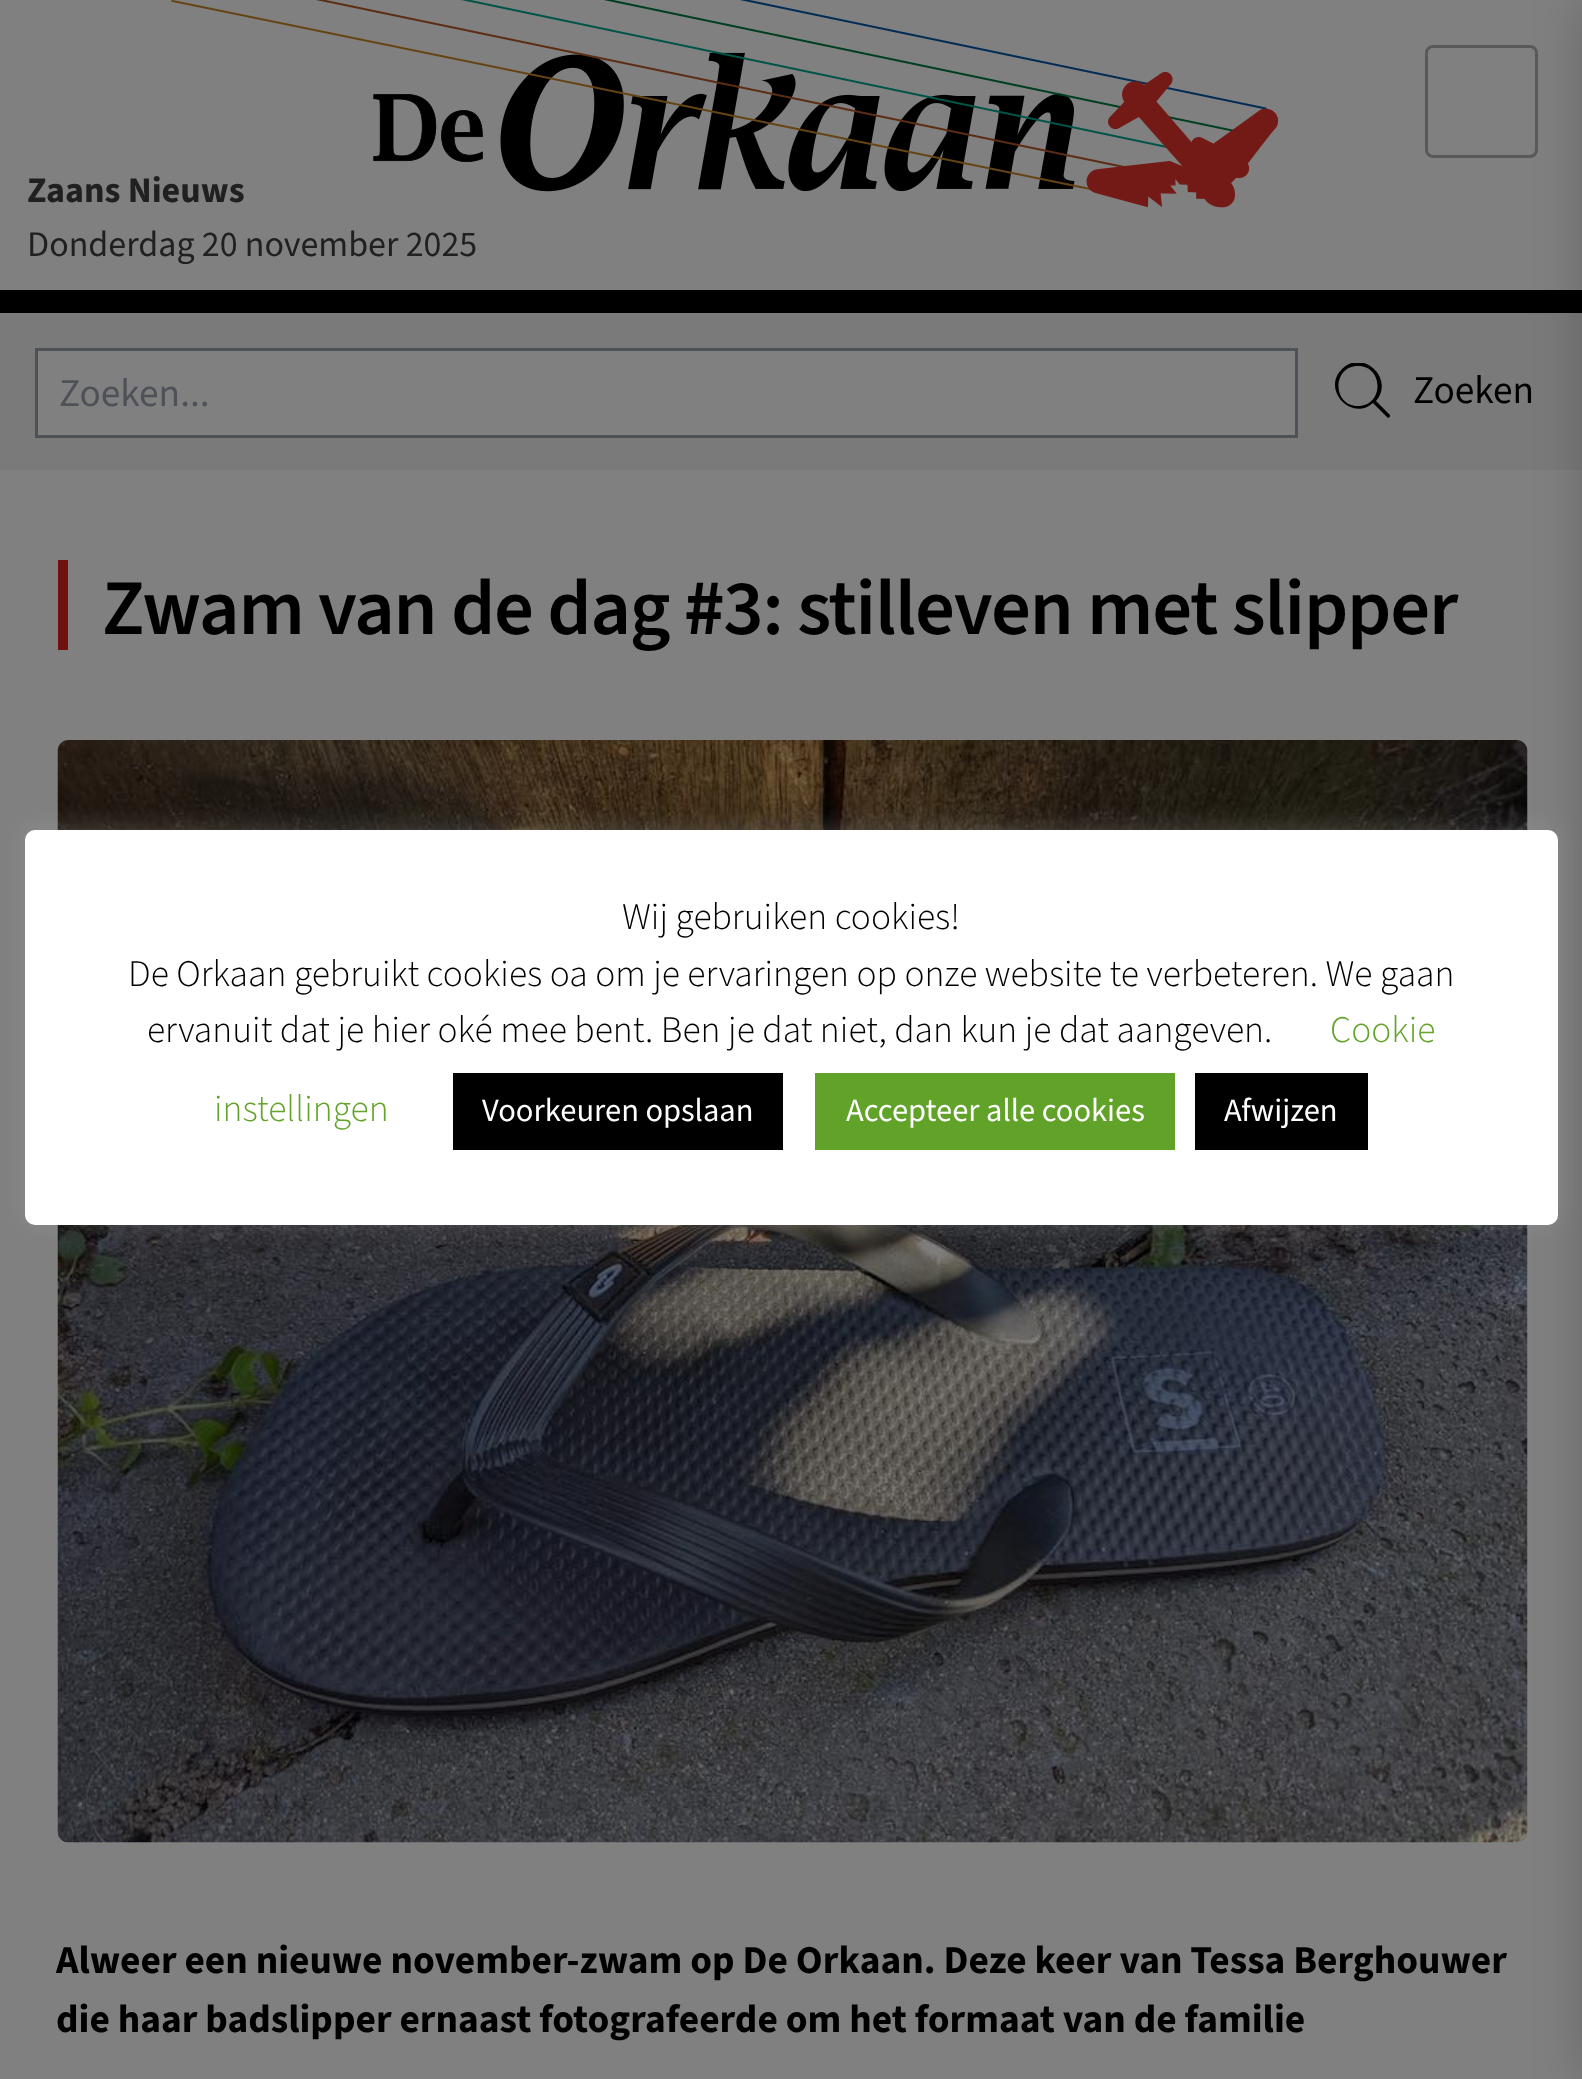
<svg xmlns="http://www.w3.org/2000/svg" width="1582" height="2079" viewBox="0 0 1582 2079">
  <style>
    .t1 { font: bold 36px 'Source Sans 3'; fill: #202020; }
    .t2 { font: 36px 'Source Sans 3'; fill: #202020; }
    .t3 { font: 39.4px 'Source Sans 3'; fill: #4e5258; }
    .t4 { font: 39.4px 'Source Sans 3'; fill: #000; }
    .t5 { font: 600 78.75px 'Source Sans 3'; letter-spacing: -1.25px; fill: #000; }
    .t6 { font: bold 39.4px 'Source Sans 3'; fill: #000; }
    .t7 { font: 300 37.5px 'Source Sans 3'; fill: #000; }
    .t8 { font: 300 37.5px 'Source Sans 3'; fill: #62a329; }
    .t9 { font: 32.5px 'Source Sans 3'; fill: #fff; }
  </style>
  <defs>
    <clipPath id="clip1"><rect x="1335" y="363" width="55" height="57"/></clipPath>
  </defs>
  <rect width="100%" height="100%" fill="#808080"/>
  <rect x="0" y="290" width="1582" height="23" fill="#000"/>
  <text x="27" y="202" class="t1">Zaans Nieuws</text>
  <image x="171" y="0" width="1107" height="208" href="images/1.png"/>
  <text x="27" y="256" class="t2">Donderdag 20 november 2025</text>
  <rect x="0" y="313" width="1582" height="157" fill="#7a7a7b"/>
  <image x="57" y="740" width="1471" height="1103" href="images/2.png"/>
  <rect x="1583" y="0" width="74" height="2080" fill="#00000033" filter="blur(25px)"/>
  <rect x="1426.5" y="46.5" width="110" height="110" rx="6.5" fill="none" stroke="#595959" stroke-width="3"/>
  <rect x="36.5" y="349.5" width="1260" height="87" fill="#808080" stroke="#4e5258" stroke-width="3"/>
  <text x="59" y="406" class="t3">Zoeken...</text>
  <g clip-path="url(#clip1)">
    <path d="M1358 406C1332 406 1332 366 1358 366C1384 366 1384 406 1358 406ZM1376 401C1395 379 1363 348 1342 369C1321 390 1352 422 1373 403L1388 418L1391 416Z" fill="#000" fill-rule="evenodd"/>
  </g>
  <text x="1413" y="403" class="t4">Zoeken</text>
  <rect x="58" y="560" width="10" height="90" fill="#71110f"/>
  <text x="102" y="634" class="t5">Zwam van de dag #3: stilleven met slipper</text>
  <text x="56" y="1973" class="t6">Alweer een nieuwe november-zwam op De Orkaan. Deze keer van Tessa Berghouwer</text>
  <text x="56" y="2032" class="t6">die haar badslipper ernaast fotografeerde om het formaat van de familie</text>
  <rect x="25" y="828" width="1533" height="395" rx="10" fill="#acabab4d" filter="blur(12.5px)"/>
  <rect x="25" y="830" width="1533" height="395" rx="10" fill="#fff"/>
  <text x="622" y="929" class="t7">Wij gebruiken cookies!</text>
  <text x="128" y="986" class="t7">De Orkaan gebruikt cookies oa om je ervaringen op onze website te verbeteren. We gaan</text>
  <text x="147" y="1042" class="t7">ervanuit dat je hier oké mee bent. Ben je dat niet, dan kun je dat aangeven.</text>
  <text x="1330" y="1042" class="t8">Cookie</text>
  <text x="214" y="1121" class="t8">instellingen</text>
  <rect x="453" y="1073" width="330" height="77" fill="#000"/>
  <text x="482" y="1121" class="t9">Voorkeuren opslaan</text>
  <rect x="815" y="1073" width="360" height="77" fill="#61a229"/>
  <text x="846" y="1121" class="t9">Accepteer alle cookies</text>
  <rect x="1195" y="1073" width="173" height="77" fill="#000"/>
  <text x="1224" y="1121" class="t9">Afwijzen</text>
</svg>
